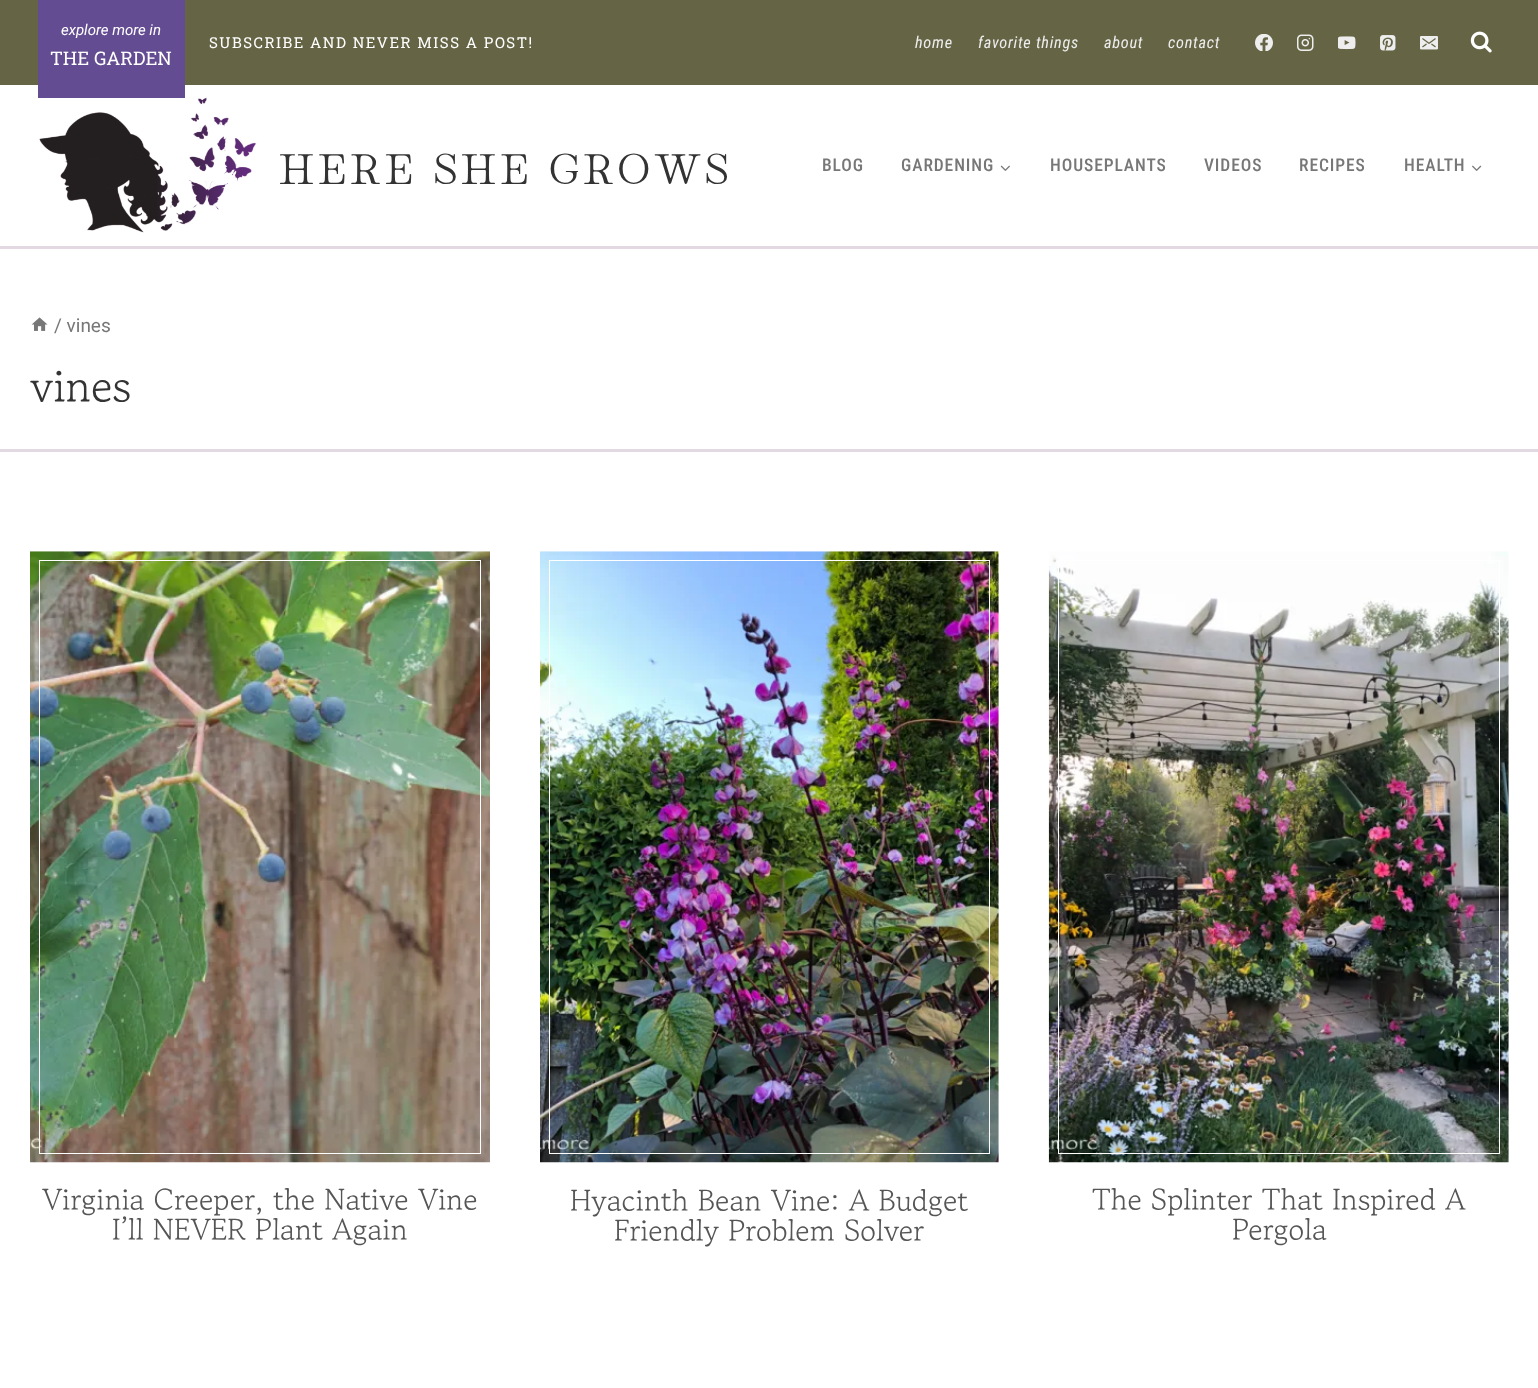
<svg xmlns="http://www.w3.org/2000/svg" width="1538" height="1388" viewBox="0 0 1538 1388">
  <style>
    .t1 { font: italic 15px Roboto; fill: #fff; }
    .t2 { font: 18.75px Roboto Slab; fill: #fff; }
    .t3 { font: 15px Roboto Slab; letter-spacing: 1.5px; fill: #fff; }
    .t4 { font: italic 16.25px Roboto Condensed; letter-spacing: 0.75px; fill: #eee; }
    .t5 { font: 43.75px Hina Mincho; letter-spacing: 4.4px; fill: #333; }
    .t6 { font: 500 17.5px Roboto Condensed; letter-spacing: 0.9px; fill: #777; }
    .t7 { font: 19px Roboto; fill: #777; }
    .t8 { font: 45px Gowun Batang; fill: #333; }
    .t9 { font: 30px Gowun Batang; fill: #555; }
  </style>
  <rect width="100%" height="100%" fill="#fff"/>
  <rect x="0" y="0" width="1538" height="85" fill="#656546"/>
  <rect x="38" y="0" width="147" height="98" fill="#634c91"/>
  <text x="61" y="35" class="t1">explore more in</text>
  <text x="50" y="65" class="t2">THE GARDEN</text>
  <text x="209" y="48" class="t3">SUBSCRIBE AND NEVER MISS A POST!</text>
  <text x="915" y="48" class="t4">home</text>
  <text x="978" y="48" class="t4">favorite things</text>
  <text x="1104" y="48" class="t4">about</text>
  <text x="1168" y="48" class="t4">contact</text>
  <image x="1255" y="34" width="18" height="17" href="images/1.png"/>
  <image x="1297" y="34" width="17" height="17" href="images/2.png"/>
  <image x="1338" y="36" width="18" height="14" href="images/3.png"/>
  <image x="1380" y="35" width="16" height="16" href="images/4.png"/>
  <image x="1420" y="36" width="18" height="14" href="images/5.png"/>
  <image x="1470" y="31" width="22" height="22" href="images/6.png"/>
  <image x="39" y="97" width="218" height="136" href="images/7.png"/>
  <text x="279" y="184" class="t5">HERE SHE GROWS</text>
  <text x="822" y="171" class="t6">BLOG</text>
  <text x="901" y="171" class="t6">GARDENING</text>
  <image x="1000" y="165" width="10" height="6" href="images/8.png"/>
  <text x="1050" y="171" class="t6">HOUSEPLANTS</text>
  <text x="1204" y="171" class="t6">VIDEOS</text>
  <text x="1299" y="171" class="t6">RECIPES</text>
  <text x="1404" y="171" class="t6">HEALTH</text>
  <image x="1472" y="165" width="10" height="6" href="images/9.png"/>
  <rect x="0" y="246" width="1538" height="3" fill="#e2d9e2"/>
  <rect x="0" y="449" width="1538" height="3" fill="#e2d9e2"/>
  <image x="31" y="317" width="17" height="14" href="images/10.png"/>
  <text x="54" y="332" class="t7">/ vines</text>
  <text x="30" y="405" class="t8">vines</text>
  <image x="30" y="551" width="460" height="612" href="images/11.png"/>
  <rect x="39.5" y="560.5" width="441" height="593" fill="none" stroke="#fff"/>
  <text x="42" y="1212" class="t9">Virginia Creeper, the Native Vine</text>
  <text x="112" y="1242" class="t9">I’ll NEVER Plant Again</text>
  <image x="540" y="551" width="459" height="612" href="images/12.png"/>
  <rect x="549.5" y="560.5" width="440" height="593" fill="none" stroke="#fff"/>
  <text x="570" y="1213" class="t9">Hyacinth Bean Vine: A Budget</text>
  <text x="614" y="1243" class="t9">Friendly Problem Solver</text>
  <image x="1048" y="551" width="461" height="612" href="images/13.png"/>
  <rect x="1058.5" y="560.5" width="441" height="593" fill="none" stroke="#fff"/>
  <text x="1092" y="1212" class="t9">The Splinter That Inspired A</text>
  <text x="1232" y="1242" class="t9">Pergola</text>
</svg>
